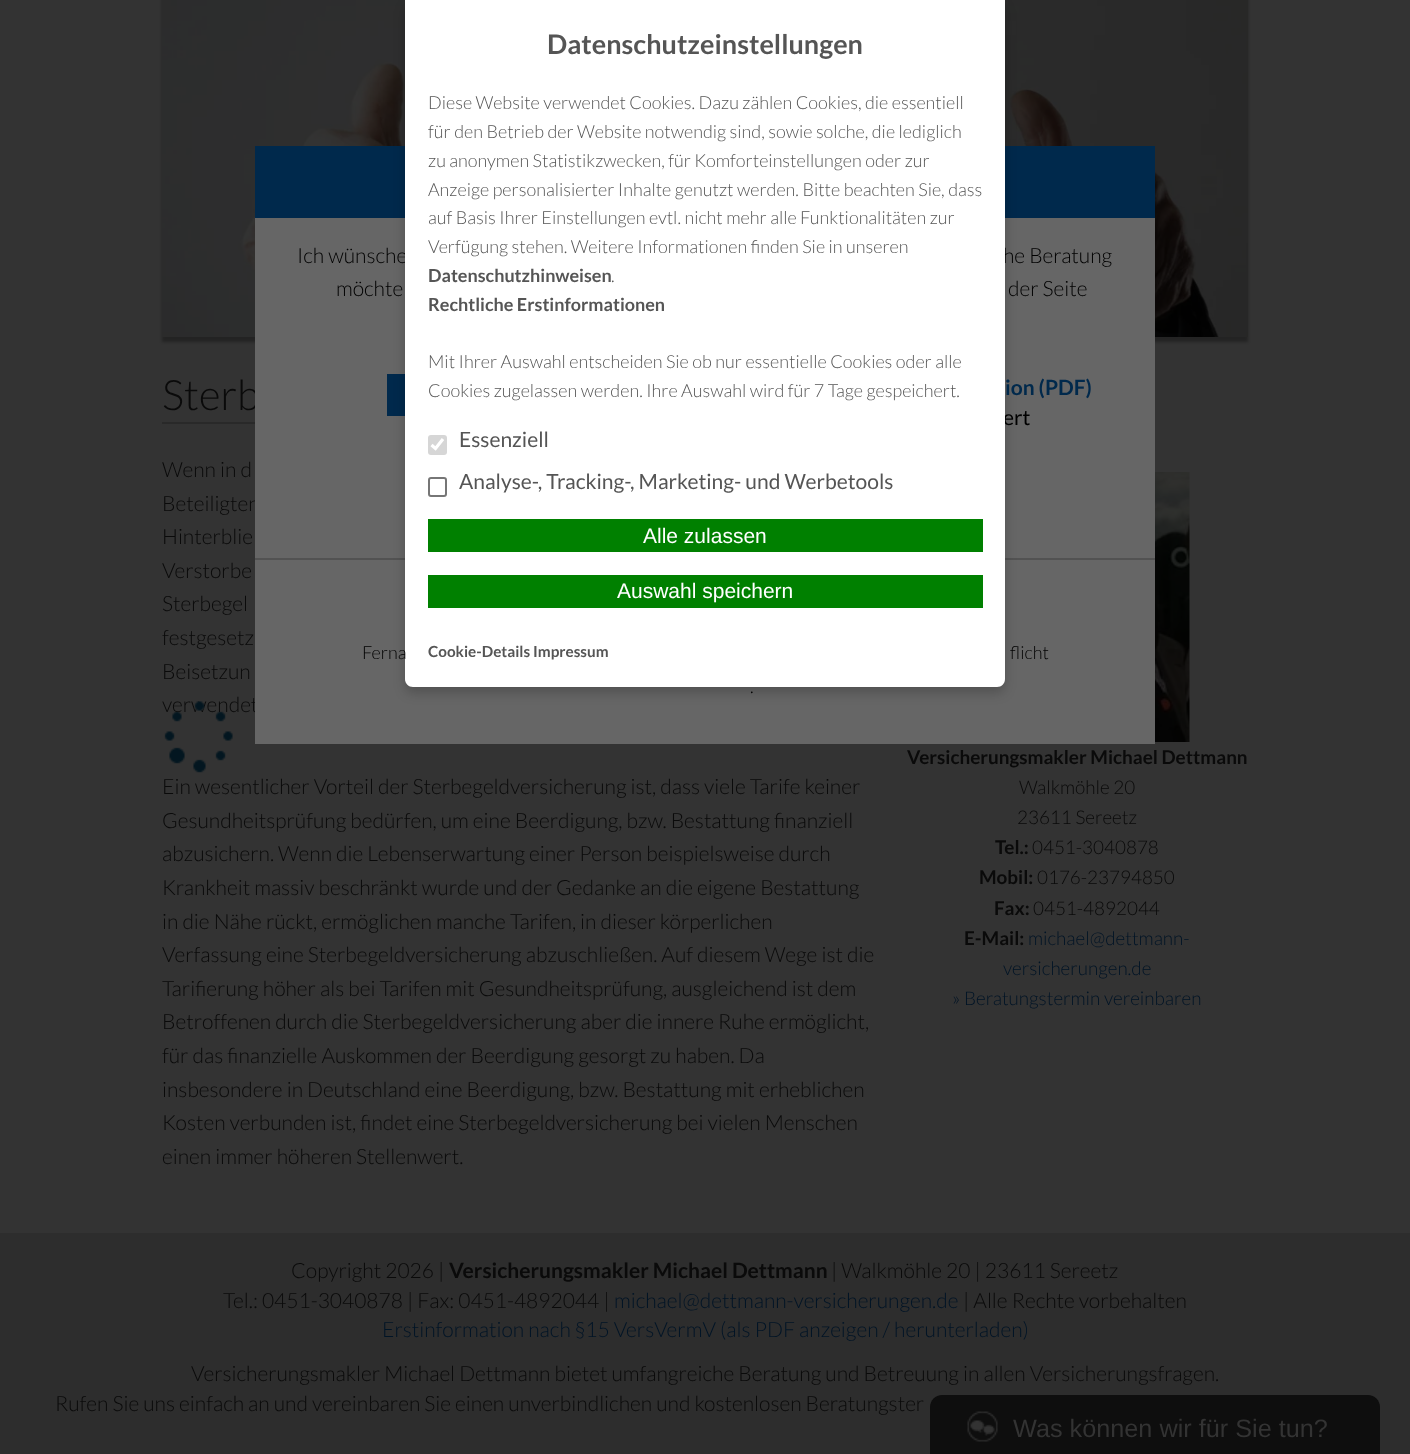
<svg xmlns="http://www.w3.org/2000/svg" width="1410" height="1454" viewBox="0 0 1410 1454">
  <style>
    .t1 { font: 300 42px Lato; fill: #0a0a0a; }
    .t2 { font: 300 21px Lato; fill: #0a0a0a; }
    .t3 { font: 300 21px Lato; fill: #000; }
    .t4 { font: 21px Lato; fill: #000; }
    .t5 { font: bold 27px Lato; fill: #555; }
    .t6 { font: 300 18px Lato; fill: #555; }
    .t7 { font: bold 18px Lato; fill: #555; }
    .t8 { font: 21px Lato; fill: #555; }
    .t9 { font: 21px Liberation Sans; fill: #fff; }
    .t10 { font: bold 15.25px Lato; fill: #555; }
    .t11 { font: bold 21px Lato; fill: #00294c; }
    .t12 { font: 300 18px Lato; fill: #000; }
    .t13 { font: bold 18.9px Lato; fill: #0a0a0a; }
    .t14 { font: 300 18.9px Lato; fill: #0a0a0a; }
    .t15 { font: 300 18.9px Lato; fill: #001426; }
    .t16 { font: bold 21px Lato; fill: #0a0a0a; }
    .t17 { font: 300 21px Lato; fill: #001426; }
    .t18 { font: 25.25px Liberation Sans; fill: #333; }
  </style>
  <rect width="100%" height="100%" fill="#333"/>
  <rect x="162" y="-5" width="1086" height="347" fill="#0000004d" filter="blur(1.5px)"/>
  <image x="162" y="0" width="1086" height="337" href="images/1.png"/>
  <text x="162" y="410" class="t1">Sterb</text>
  <text x="162" y="511" class="t2">Beteiligten</text>
  <text x="162" y="712" class="t2">verwendet</text>
  <rect x="255" y="218" width="900" height="526" fill="#666"/>
  <rect x="255" y="146" width="900" height="72" fill="#00294c"/>
  <rect x="387" y="374" width="18" height="42" fill="#00294c"/>
  <rect x="255" y="558" width="900" height="2" fill="#525252"/>
  <rect x="405" y="6" width="600" height="687" rx="8" fill="#00000033" filter="blur(6px)"/>
  <text x="297" y="263" class="t3">Ich wünsche</text>
  <text x="1003" y="263" class="t3">he Beratung</text>
  <text x="1003" y="425" class="t4">ert</text>
  <path d="M405 0H1005V679C1005 683.5 1001.5 687 997 687H413C408.5 687 405 683.5 405 679Z" fill="#fff"/>
  <text x="547" y="54" class="t5">Datenschutzeinstellungen</text>
  <text x="428" y="109" class="t6">Diese Website verwendet Cookies. Dazu zählen Cookies, die essentiell</text>
  <text x="428" y="138" class="t6">für den Betrieb der Website notwendig sind, sowie solche, die lediglich</text>
  <text x="428" y="167" class="t6">zu anonymen Statistikzwecken, für Komforteinstellungen oder zur</text>
  <text x="428" y="196" class="t6">Anzeige personalisierter Inhalte genutzt werden. Bitte beachten Sie, dass</text>
  <text x="428" y="224" class="t6">auf Basis Ihrer Einstellungen evtl. nicht mehr alle Funktionalitäten zur</text>
  <text x="428" y="253" class="t6">Verfügung stehen. Weitere Informationen finden Sie in unseren</text>
  <text x="428" y="282" class="t7">Datenschutzhinweisen</text>
  <text x="611" y="282" class="t6">.</text>
  <text x="428" y="311" class="t7">Rechtliche Erstinformationen</text>
  <text x="428" y="368" class="t6">Mit Ihrer Auswahl entscheiden Sie ob nur essentielle Cookies oder alle</text>
  <text x="428" y="397" class="t6">Cookies zugelassen werden. Ihre Auswahl wird für 7 Tage gespeichert.</text>
  <rect x="428" y="435" width="19" height="20" rx="3" fill="#d6d6d6"/>
  <path d="M431.5 445L435.5 448.5L443 439" fill="none" stroke="#fff" stroke-width="3.1"/>
  <text x="459" y="447" class="t8">Essenziell</text>
  <rect x="429" y="478" width="17" height="18" rx="2" fill="none" stroke="#767676" stroke-width="2"/>
  <text x="459" y="489" class="t8">Analyse-, Tracking-, Marketing- und Werbetools</text>
  <rect x="428" y="519" width="555" height="33" fill="#008000"/>
  <text x="643" y="543" class="t9">Alle zulassen</text>
  <rect x="428" y="575" width="555" height="33" fill="#008000"/>
  <text x="617" y="598" class="t9">Auswahl speichern</text>
  <text x="428" y="657" class="t10">Cookie-Details Impressum</text>
  <text x="336" y="296" class="t3">möchte</text>
  <text x="1008" y="296" class="t3">der Seite</text>
  <text x="1005" y="395" class="t11">ion (PDF)</text>
  <text x="362" y="659" class="t12">Ferna</text>
  <text x="1010" y="659" class="t12">flicht</text>
  <text x="750" y="693" class="t12">.</text>
  <rect x="162" y="422" width="93" height="2" fill="#292929"/>
  <text x="162" y="477" class="t2">Wenn in d</text>
  <text x="162" y="544" class="t2">Hinterblie</text>
  <text x="162" y="578" class="t2">Verstorbe</text>
  <text x="162" y="611" class="t2">Sterbegel</text>
  <text x="162" y="645" class="t2">festgesetz</text>
  <text x="162" y="679" class="t2">Beisetzun</text>
  <image x="164" y="701" width="69" height="72" href="images/2.png"/>
  <text x="162" y="794" class="t2">Ein wesentlicher Vorteil der Sterbegeldversicherung ist, dass viele Tarife keiner</text>
  <text x="162" y="828" class="t2">Gesundheitsprüfung bedürfen, um eine Beerdigung, bzw. Bestattung finanziell</text>
  <text x="162" y="861" class="t2">abzusichern. Wenn die Lebenserwartung einer Person beispielsweise durch</text>
  <text x="162" y="895" class="t2">Krankheit massiv beschränkt wurde und der Gedanke an die eigene Bestattung</text>
  <text x="162" y="929" class="t2">in die Nähe rückt, ermöglichen manche Tarifen, in dieser körperlichen</text>
  <text x="162" y="962" class="t2">Verfassung eine Sterbegeldversicherung abzuschließen. Auf diesem Wege ist die</text>
  <text x="162" y="996" class="t2">Tarifierung höher als bei Tarifen mit Gesundheitsprüfung, ausgleichend ist dem</text>
  <text x="162" y="1029" class="t2">Betroffenen durch die Sterbegeldversicherung aber die innere Ruhe ermöglicht,</text>
  <text x="162" y="1063" class="t2">für das finanzielle Auskommen der Beerdigung gesorgt zu haben. Da</text>
  <text x="162" y="1097" class="t2">insbesondere in Deutschland eine Beerdigung, bzw. Bestattung mit erheblichen</text>
  <text x="162" y="1130" class="t2">Kosten verbunden ist, findet eine Sterbegeldversicherung bei vielen Menschen</text>
  <text x="162" y="1164" class="t2">einen immer höheren Stellenwert.</text>
  <image x="1155" y="472" width="35" height="270" href="images/3.png"/>
  <text x="907" y="764" class="t13">Versicherungsmakler Michael Dettmann</text>
  <text x="1019" y="794" class="t14">Walkmöhle 20</text>
  <text x="1017" y="824" class="t14">23611 Sereetz</text>
  <text x="995" y="854" class="t13">Tel.:</text>
  <text x="1032" y="854" class="t14">0451-3040878</text>
  <text x="979" y="884" class="t13">Mobil:</text>
  <text x="1037" y="884" class="t14">0176-23794850</text>
  <text x="994" y="915" class="t13">Fax:</text>
  <text x="1033" y="915" class="t14">0451-4892044</text>
  <text x="964" y="945" class="t13">E-Mail:</text>
  <text x="1028" y="945" class="t15">michael@dettmann-</text>
  <text x="1003" y="975" class="t15">versicherungen.de</text>
  <text x="952" y="1005" class="t15">» Beratungstermin vereinbaren</text>
  <rect x="0" y="1233" width="1410" height="221" fill="#2d2d2d"/>
  <text x="291" y="1278" class="t2">Copyright 2026 |</text>
  <text x="449" y="1278" class="t16">Versicherungsmakler Michael Dettmann</text>
  <text x="831" y="1278" class="t2">| Walkmöhle 20 | 23611 Sereetz</text>
  <text x="223" y="1308" class="t2">Tel.: 0451-3040878 | Fax: 0451-4892044 |</text>
  <text x="614" y="1308" class="t17">michael@dettmann-versicherungen.de</text>
  <text x="963" y="1308" class="t2">| Alle Rechte vorbehalten</text>
  <text x="382" y="1337" class="t17">Erstinformation nach §15 VersVermV (als PDF anzeigen / herunterladen)</text>
  <text x="191" y="1381" class="t2">Versicherungsmakler Michael Dettmann bietet umfangreiche Beratung und Betreuung in allen Versicherungsfragen.</text>
  <text x="55" y="1411" class="t2">Rufen Sie uns einfach an und vereinbaren Sie einen unverbindlichen und kostenlosen Beratungster</text>
  <path d="M942 1395H1368C1374.5 1395 1380 1400.5 1380 1407V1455H930V1407C930 1400.5 935.5 1395 942 1395Z" fill="#0e0e0e"/>
  <image x="967" y="1411" width="31" height="31" href="images/4.png"/>
  <text x="1013" y="1437" class="t18">Was können wir für Sie tun?</text>
</svg>
